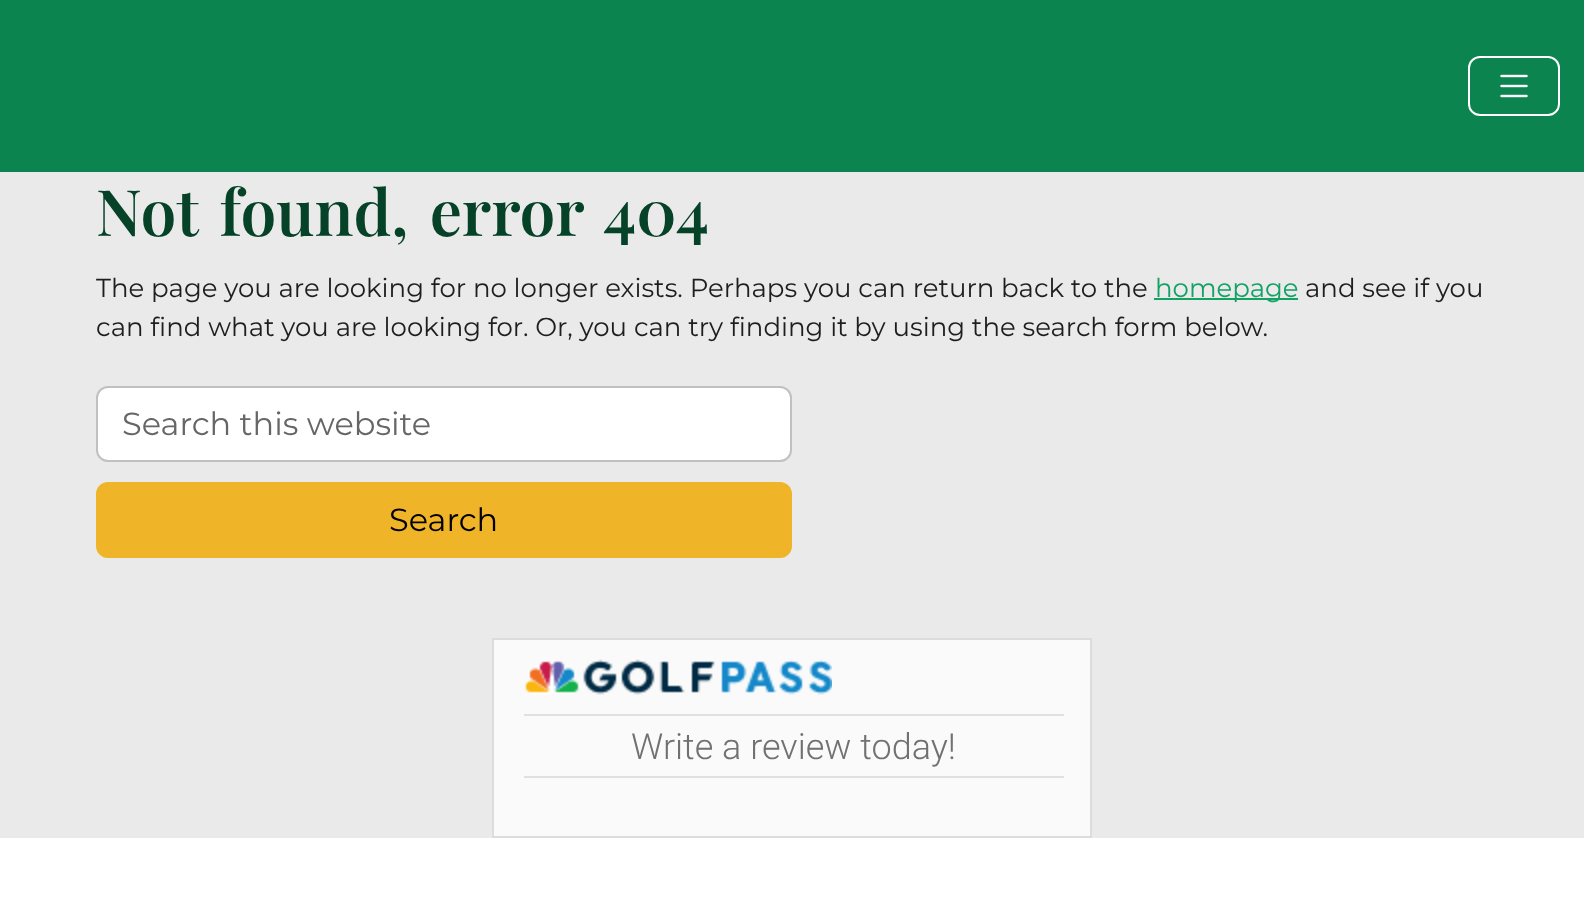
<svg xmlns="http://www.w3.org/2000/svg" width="1584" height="909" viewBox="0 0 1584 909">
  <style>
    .t1 { font: 600 64px Playfair Display; fill: #064228; }
    .t2 { font: 26px Montserrat; fill: #1e1e1e; }
    .t3 { font: 26px Montserrat; fill: #14a164; }
    .t4 { font: 32px Montserrat; fill: #666; }
    .t5 { font: 32px Montserrat; fill: #000; }
    .t6 { font: 300 36px Roboto; fill: #717171; }
  </style>
  <rect width="100%" height="100%" fill="#eaeaea"/>
  <rect x="0" y="0" width="1584" height="172" fill="#0c8450"/>
  <rect x="1469" y="57" width="90" height="58" rx="11" fill="none" stroke="#fff" stroke-width="2"/>
  <image x="1500" y="74" width="28" height="24" href="images/1.png"/>
  <text x="96" y="236" word-spacing="6" class="t1">Not found, error 404</text>
  <text x="96" y="297" class="t2">The page you are looking for no longer exists. Perhaps you can return back to the</text>
  <rect x="1154" y="298" width="144" height="2" fill="#14a164"/>
  <text x="1155" y="297" class="t3">homepage</text>
  <text x="1305" y="297" class="t2">and see if you</text>
  <text x="96" y="336" class="t2">can find what you are looking for. Or, you can try finding it by using the search form below.</text>
  <rect x="97" y="387" width="694" height="74" rx="11" fill="#fff" stroke="#c0c0c0" stroke-width="2"/>
  <text x="122" y="435" class="t4">Search this website</text>
  <rect x="97" y="483" width="694" height="74" rx="11" fill="#f0b428" stroke="#f0b428" stroke-width="2"/>
  <text x="389" y="531" class="t5">Search</text>
  <rect x="493" y="639" width="598" height="198" fill="#fafafa" stroke="#dcdcdc" stroke-width="2"/>
  <image x="525" y="659" width="307" height="36" href="images/2.png"/>
  <rect x="524" y="714" width="540" height="2" fill="#e0e0e0"/>
  <rect x="524" y="776" width="540" height="2" fill="#e0e0e0"/>
  <text x="631" y="759" class="t6">Write a review today!</text>
  <rect x="0" y="838" width="1584" height="71" fill="#fff"/>
</svg>
